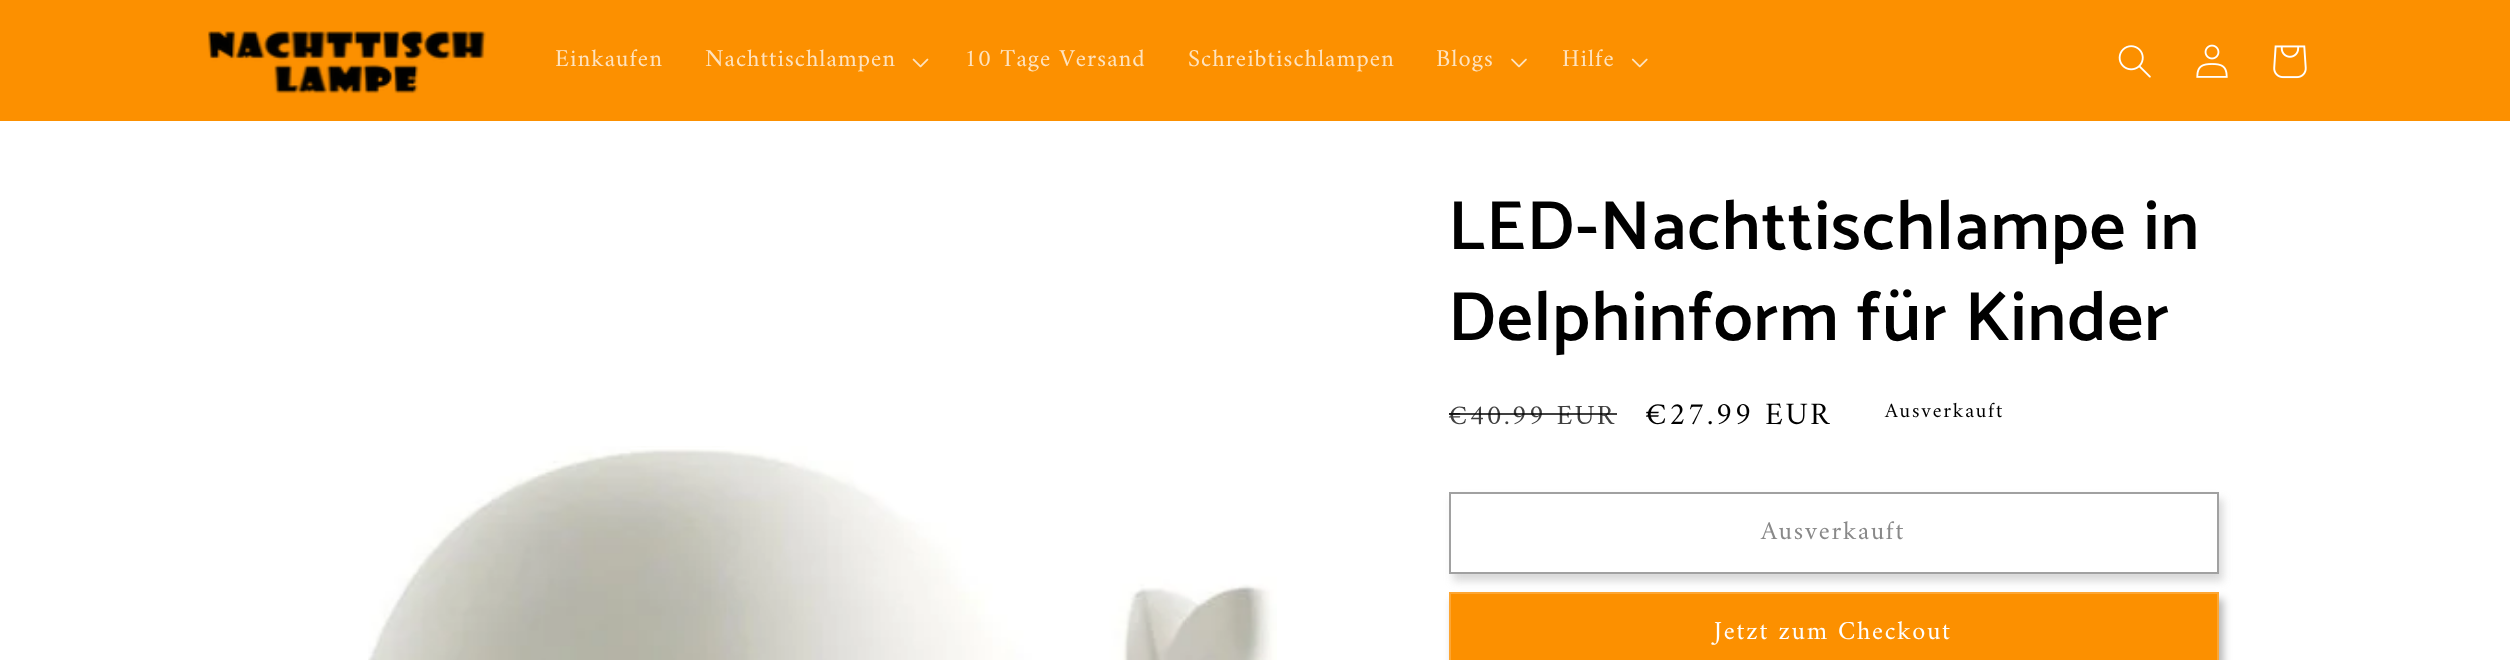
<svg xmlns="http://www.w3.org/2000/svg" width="2510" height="660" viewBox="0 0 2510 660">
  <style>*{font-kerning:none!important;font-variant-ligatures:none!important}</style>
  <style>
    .t1 { font: 24.5px Amiri; letter-spacing: 1.05px; fill: #fee3bf; }
    .t2 { font: 600 70px Catamaran; letter-spacing: 1.05px; fill: #000; }
    .t3 { font: 28px Amiri; letter-spacing: 2.25px; fill: #404040; }
    .t4 { font: 31.5px Amiri; letter-spacing: 2.25px; fill: #000; }
    .t5 { font: 21px Amiri; letter-spacing: 1.75px; fill: #000; }
    .t6 { font: 26.25px Amiri; letter-spacing: 1.75px; fill: #898989; }
    .t7 { font: 26.25px Amiri; letter-spacing: 1.75px; fill: #fff; }
  </style>
  <defs>
    <clipPath id="clip1"><path d="M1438 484H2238V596H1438ZM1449 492H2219V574H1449Z" clip-rule="evenodd"/></clipPath>
  </defs>
  <rect width="100%" height="100%" fill="#fff"/>
  <rect x="0" y="0" width="2510" height="121" fill="#fc9000"/>
  <image x="208" y="30" width="278" height="64" href="images/1.png"/>
  <text x="555" y="66" class="t1">Einkaufen</text>
  <text x="705" y="66" class="t1">Nachttischlampen</text>
  <image x="912" y="58" width="17" height="10" href="images/2.png"/>
  <text x="964" y="66" class="t1">10 Tage Versand</text>
  <text x="1188" y="66" class="t1">Schreibtischlampen</text>
  <text x="1436" y="66" class="t1">Blogs</text>
  <image x="1511" y="58" width="16" height="10" href="images/3.png"/>
  <text x="1562" y="66" class="t1">Hilfe</text>
  <image x="1631" y="58" width="17" height="10" href="images/4.png"/>
  <image x="2118" y="45" width="33" height="33" href="images/5.png"/>
  <image x="2196" y="44" width="32" height="34" href="images/6.png"/>
  <image x="2273" y="45" width="34" height="34" href="images/7.png"/>
  <image x="368" y="446" width="909" height="214" href="images/8.png"/>
  <text x="1448" y="249" class="t2">LED-Nachttischlampe in</text>
  <text x="1448" y="340" class="t2">Delphinform für Kinder</text>
  <text x="1448" y="424" class="t3">€40.99 EUR</text>
  <rect x="1449" y="413" width="168" height="2" fill="#000000bf"/>
  <text x="1645" y="424" class="t4">€27.99 EUR</text>
  <text x="1885" y="417" class="t5">Ausverkauft</text>
  <g clip-path="url(#clip1)">
    <rect x="1453" y="499" width="770" height="82" fill="#7f7f7f4d" filter="blur(4.5px)"/>
  </g>
  <rect x="1450" y="493" width="768" height="80" fill="none" stroke="#a1a1a1" stroke-width="2"/>
  <text x="1761" y="539" class="t6">Ausverkauft</text>
  <rect x="1453" y="599" width="770" height="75" fill="#0000004d" filter="blur(4.5px)"/>
  <rect x="1451" y="594" width="766" height="66" fill="#fc9000"/>
  <rect x="1450" y="593" width="768" height="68" fill="none" stroke="#fda633" stroke-width="2"/>
  <text x="1714" y="639" class="t7">Jetzt zum Checkout</text>
</svg>
